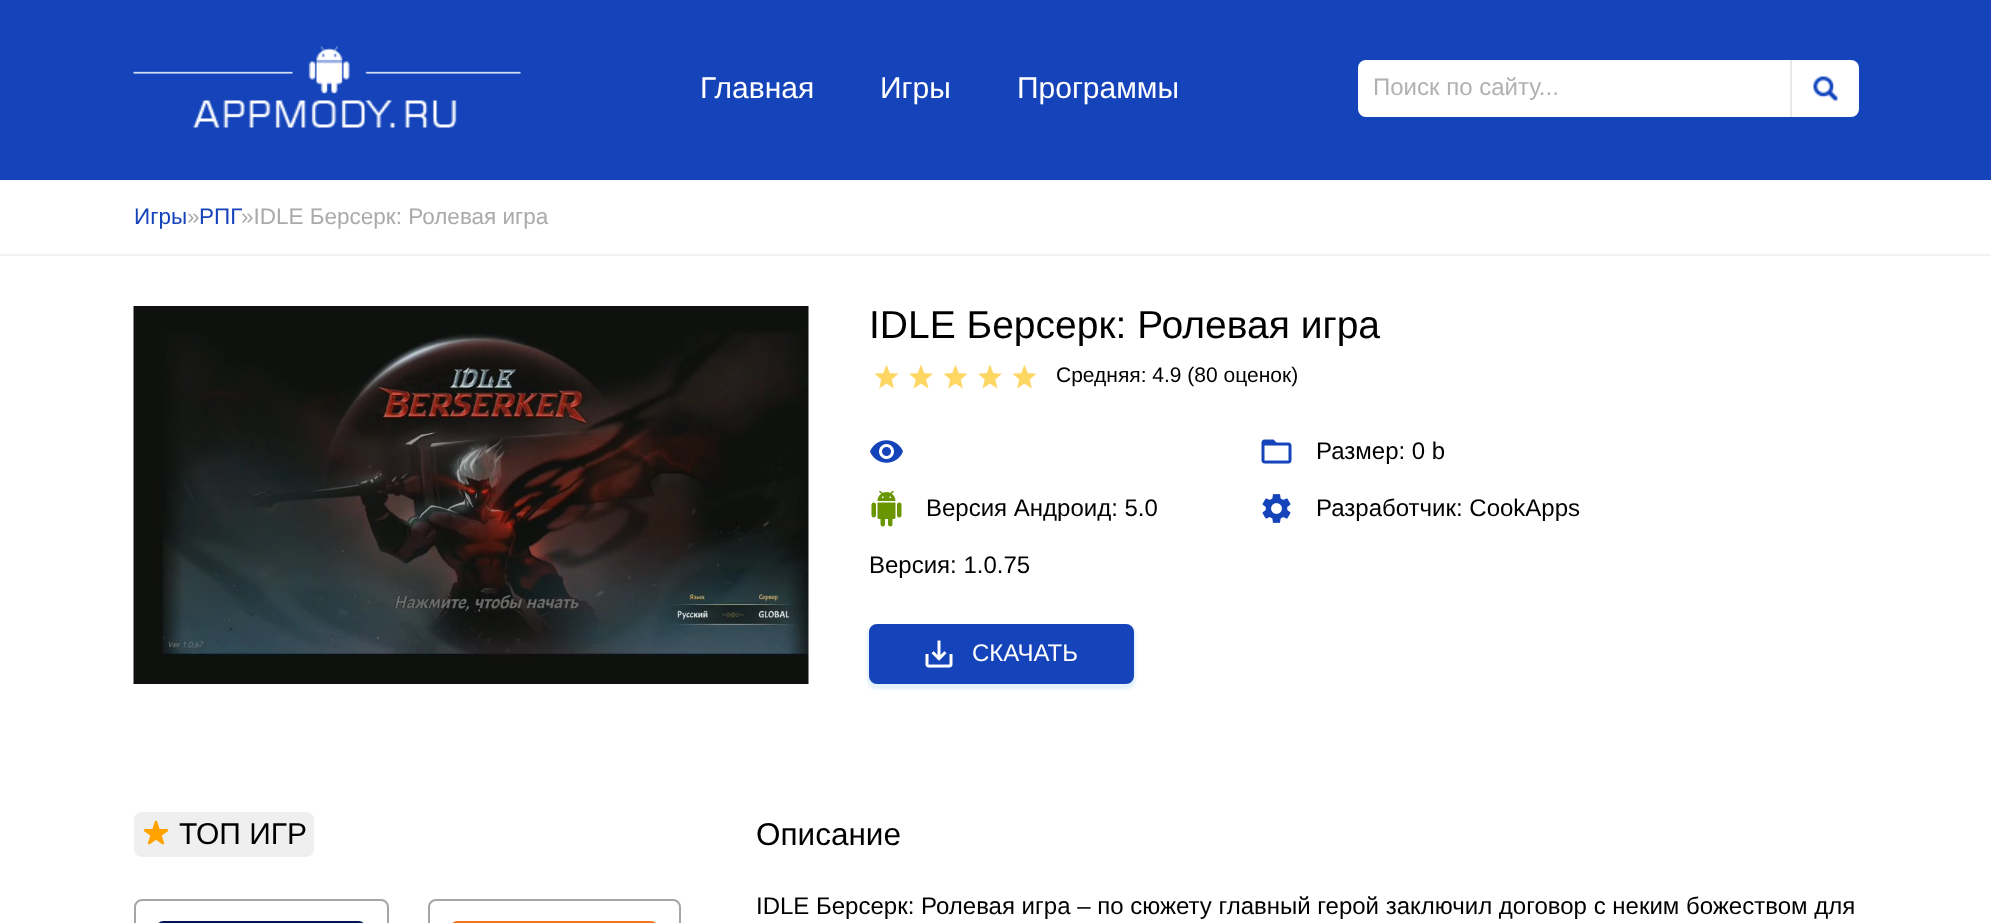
<svg xmlns="http://www.w3.org/2000/svg" width="1991" height="923" viewBox="0 0 1991 923">
  <style>
    .t1 { font: 30px Liberation Sans; fill: #fff; }
    .t2 { font: 24px Liberation Sans; fill: #b1b1b1; }
    .t3 { font: 22.5px Liberation Sans; fill: #1443ba; }
    .t4 { font: 22.5px Liberation Sans; fill: #aaa; }
    .t5 { font: 39px Liberation Sans; fill: #000; }
    .t6 { font: 21px Liberation Sans; fill: #000; }
    .t7 { font: 24px Liberation Sans; fill: #000; }
    .t8 { font: 24px Liberation Sans; fill: #fff; }
    .t9 { font: 30px Liberation Sans; fill: #000; }
    .t10 { font: 31.5px Liberation Sans; fill: #000; }
  </style>
  <rect width="100%" height="100%" fill="#fff"/>
  <rect x="0" y="0" width="1991" height="180" fill="#1443ba"/>
  <image x="133" y="46" width="388" height="82" href="images/1.png"/>
  <text x="700" y="98" class="t1">Главная</text>
  <text x="880" y="98" class="t1">Игры</text>
  <text x="1017" y="98" class="t1">Программы</text>
  <rect x="1358" y="60" width="501" height="57" rx="8" fill="#fff"/>
  <text x="1373" y="95" class="t2">Поиск по сайту...</text>
  <image x="1813" y="76" width="25" height="25" href="images/2.png"/>
  <rect x="1790" y="60" width="2" height="57" fill="#e9e9e9"/>
  <rect x="0" y="254" width="1991" height="2" fill="#f2f2f2"/>
  <text x="134" y="224" class="t3">Игры</text>
  <text x="187" y="224" class="t4">»</text>
  <text x="199" y="224" class="t3">РПГ</text>
  <text x="241" y="224" class="t4">»IDLE Берсерк: Ролевая игра</text>
  <image x="133" y="306" width="676" height="378" href="images/3.png"/>
  <text x="869" y="338" class="t5">IDLE Берсерк: Ролевая игра</text>
  <image x="874" y="364" width="163" height="25" href="images/4.png"/>
  <text x="1056" y="382" class="t6">Средняя: 4.9 (80 оценок)</text>
  <image x="870" y="440" width="33" height="23" href="images/5.png"/>
  <image x="1261" y="439" width="31" height="25" href="images/6.png"/>
  <text x="1316" y="459" class="t7">Размер: 0 b</text>
  <image x="871" y="491" width="31" height="36" href="images/7.png"/>
  <text x="926" y="516" class="t7">Версия Андроид: 5.0</text>
  <image x="1262" y="494" width="29" height="29" href="images/8.png"/>
  <text x="1316" y="516" class="t7">Разработчик: CookApps</text>
  <text x="869" y="573" class="t7">Версия: 1.0.75</text>
  <rect x="867" y="626" width="269" height="63" rx="9" fill="#5eafe22e" filter="blur(1.5px)"/>
  <rect x="870.5" y="625.5" width="262" height="57" rx="6.5" fill="#1443ba" stroke="#1443ba" stroke-width="3"/>
  <image x="925" y="640" width="28" height="28" href="images/9.png"/>
  <text x="972" y="661" class="t8">СКАЧАТЬ</text>
  <rect x="134" y="812" width="180" height="45" rx="8" fill="#efefef"/>
  <image x="143" y="820" width="26" height="25" href="images/10.png"/>
  <text x="179" y="844" class="t9">ТОП ИГР</text>
  <rect x="135" y="900" width="253" height="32" rx="7" fill="none" stroke="#a6a6a6" stroke-width="2"/>
  <image x="158" y="921" width="206" height="2" href="images/11.png"/>
  <rect x="429" y="900" width="251" height="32" rx="7" fill="none" stroke="#a6a6a6" stroke-width="2"/>
  <image x="452" y="921" width="204" height="2" href="images/12.png"/>
  <text x="756" y="845" class="t10">Описание</text>
  <text x="756" y="914" class="t7">IDLE Берсерк: Ролевая игра – по сюжету главный герой заключил договор с неким божеством для</text>
</svg>
